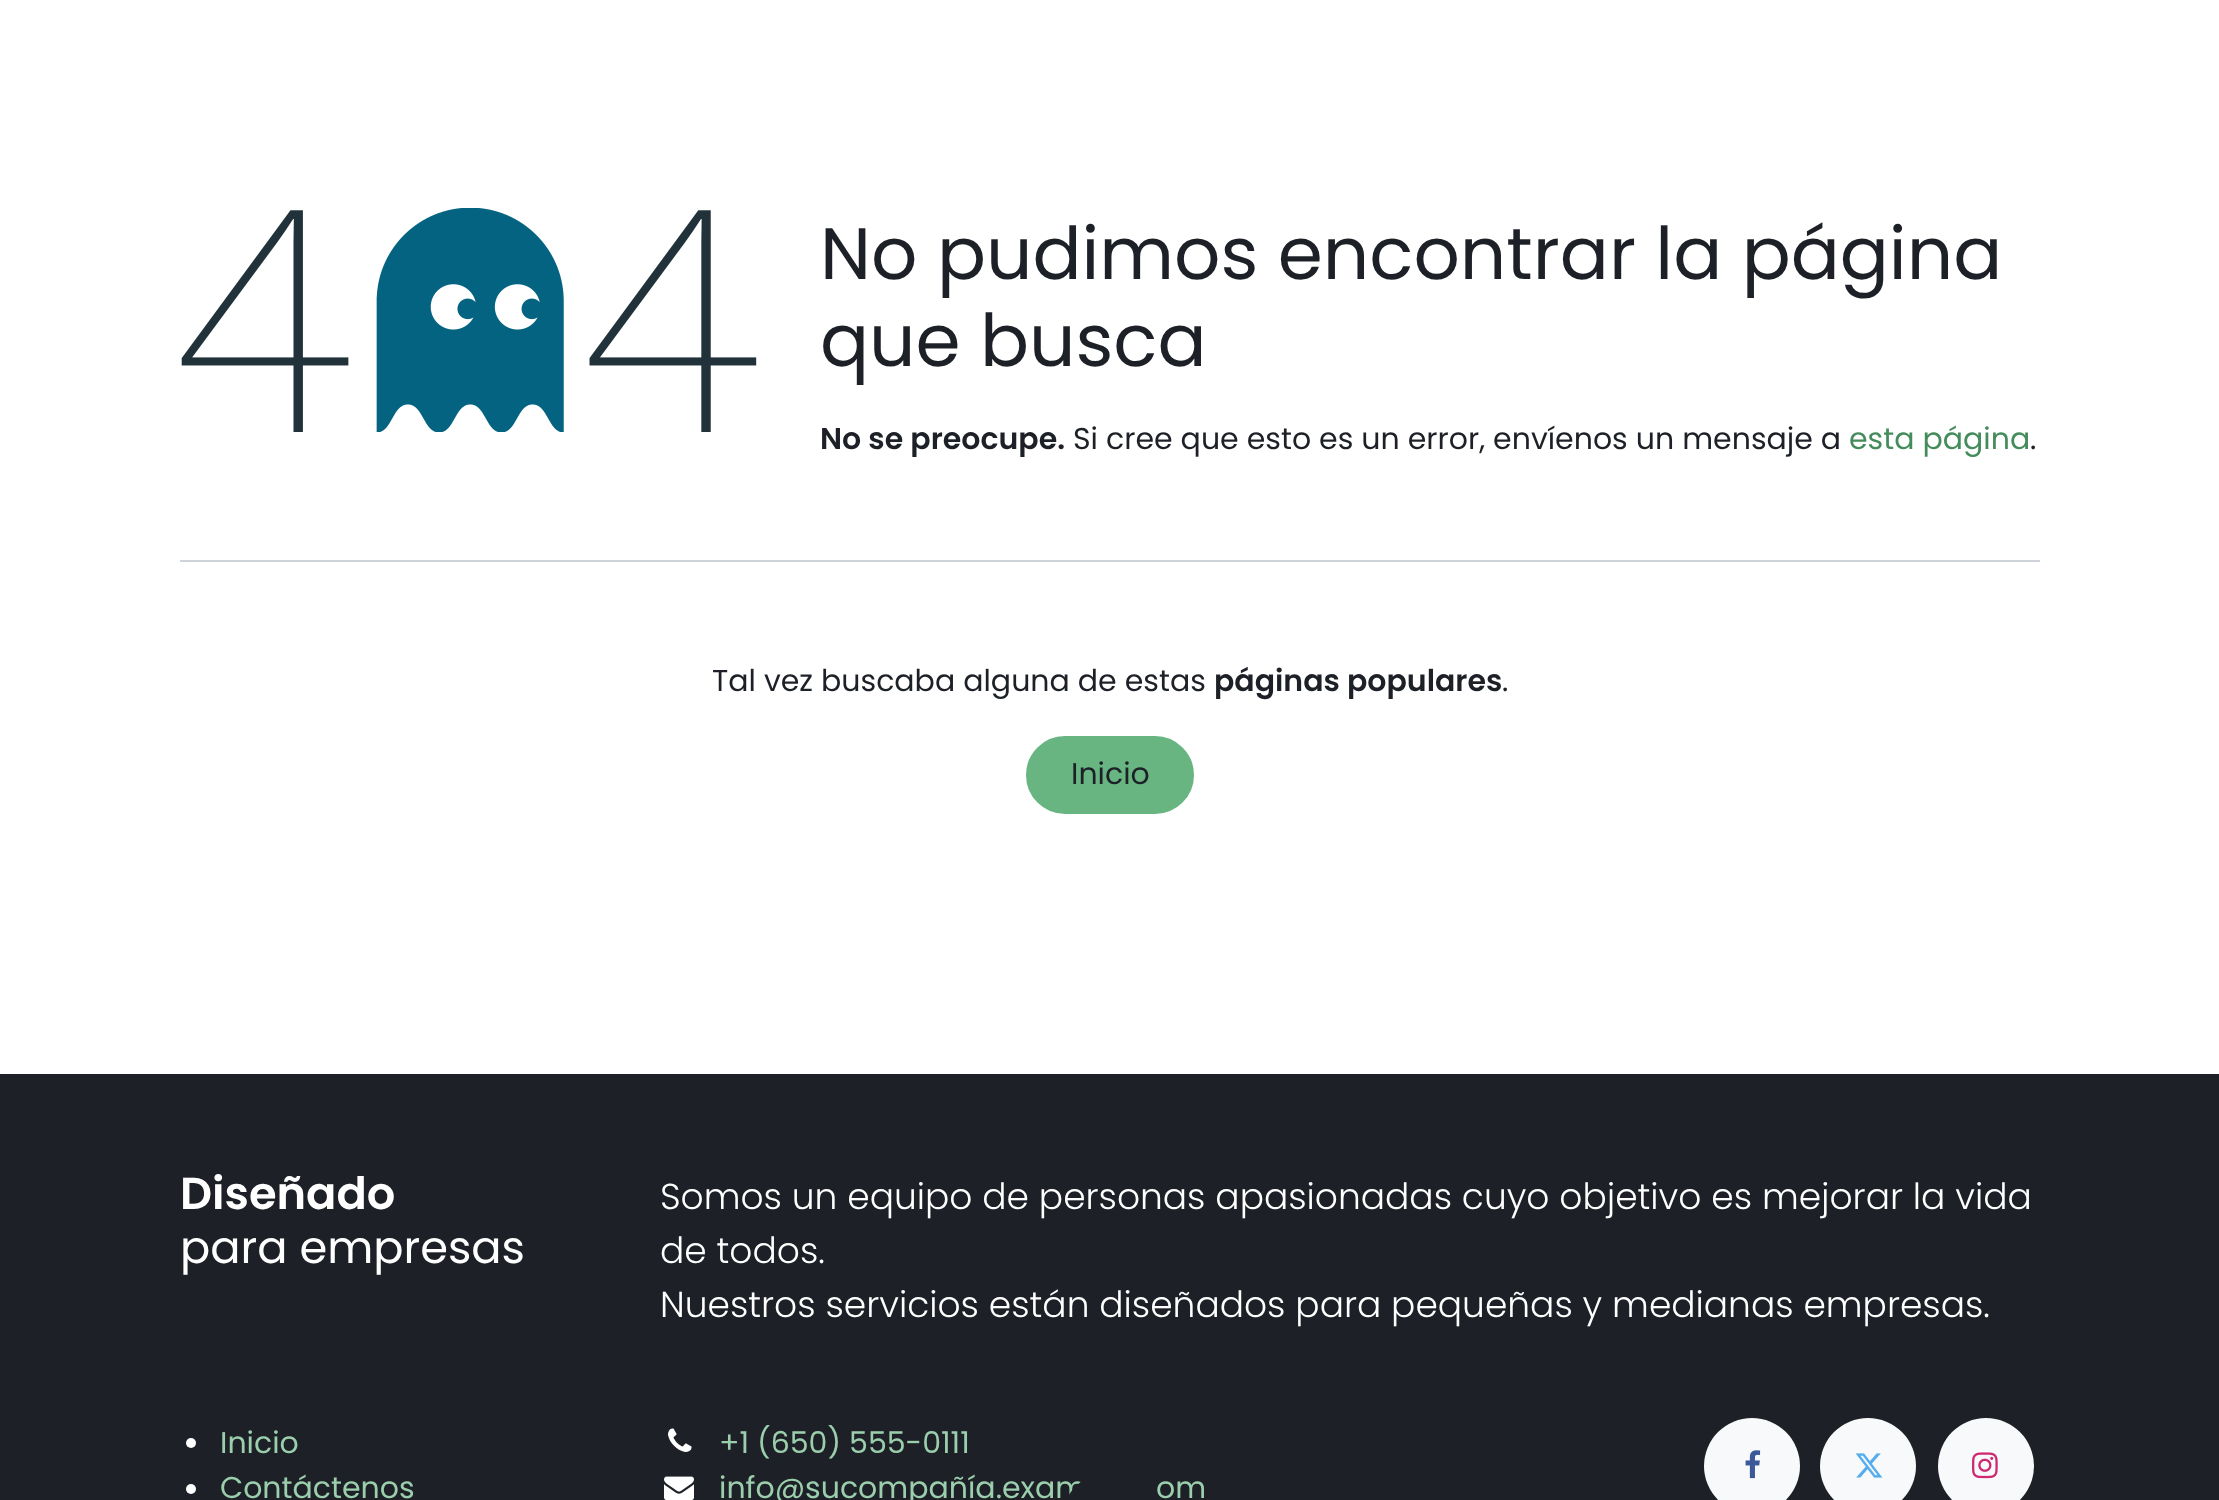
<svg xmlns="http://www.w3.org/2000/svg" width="2219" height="1500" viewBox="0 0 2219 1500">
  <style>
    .t1 { font: 72.6px Poppins; fill: #1d2127; }
    .t2 { font: 600 30px Poppins; fill: #1d2127; }
    .t3 { font: 30px Poppins; fill: #1d2127; }
    .t4 { font: 30px Poppins; fill: #458c5c; }
    .t5 { font: 600 44.75px Poppins; fill: #fff; }
    .t6 { font: 44.75px Poppins; fill: #fff; }
    .t7 { font: 300 36px Poppins; fill: #fff; }
    .t8 { font: 30px Poppins; fill: #9bceac; }
  </style>
  <rect width="100%" height="100%" fill="#fff"/>
  <image x="181" y="208" width="576" height="224" href="images/1.png"/>
  <text x="820" y="279" class="t1">No pudimos encontrar la página</text>
  <text x="820" y="366" class="t1">que busca</text>
  <text x="820" y="449" class="t2">No se preocupe.</text>
  <text x="1073" y="449" class="t3">Si cree que esto es un error, envíenos un mensaje a</text>
  <text x="1849" y="449" class="t4">esta página</text>
  <text x="2030" y="449" class="t3">.</text>
  <rect x="180" y="560" width="1860" height="2" fill="#ced4da"/>
  <text x="712" y="691" class="t3">Tal vez buscaba alguna de estas</text>
  <text x="1214" y="691" class="t2">páginas populares</text>
  <text x="1502" y="691" class="t3">.</text>
  <rect x="1027" y="737" width="166" height="76" rx="38" fill="#68b581" stroke="#68b581" stroke-width="2"/>
  <text x="1071" y="784" class="t3">Inicio</text>
  <rect x="0" y="1074" width="2219" height="426" fill="#1d2127"/>
  <text x="180" y="1209" class="t5">Diseñado</text>
  <text x="180" y="1263" class="t6">para empresas</text>
  <text x="660" y="1209" class="t7">Somos un equipo de personas apasionadas cuyo objetivo es mejorar la vida</text>
  <text x="660" y="1263" class="t7">de todos.</text>
  <text x="660" y="1317" class="t7">Nuestros servicios están diseñados para pequeñas y medianas empresas.</text>
  <circle cx="191" cy="1443" r="5" fill="#fff"/>
  <text x="220" y="1453" class="t8">Inicio</text>
  <circle cx="191" cy="1489" r="5" fill="#fff"/>
  <text x="220" y="1498" class="t8">Contáctenos</text>
  <image x="668" y="1428" width="24" height="24" href="images/2.png"/>
  <text x="719" y="1453" class="t8">+1 (650) 555-0111</text>
  <image x="664" y="1476" width="30" height="24" href="images/3.png"/>
  <text x="719" y="1498" class="t8">info@sucompañía.exam</text>
  <text x="1156" y="1498" class="t8">om</text>
  <circle cx="1752" cy="1466" r="48" fill="#f8f9fa"/>
  <image x="1745" y="1450" width="16" height="29" href="images/4.png"/>
  <circle cx="1868" cy="1466" r="48" fill="#f8f9fa"/>
  <image x="1855" y="1453" width="28" height="25" href="images/5.png"/>
  <circle cx="1986" cy="1466" r="48" fill="#f8f9fa"/>
  <image x="1972" y="1452" width="26" height="27" href="images/6.png"/>
  <path d="M1110 1472C1136.5 1472 1158 1493.5 1158 1520V1500H1062V1520C1062 1493.5 1083.5 1472 1110 1472Z" fill="#1d2127"/>
</svg>
